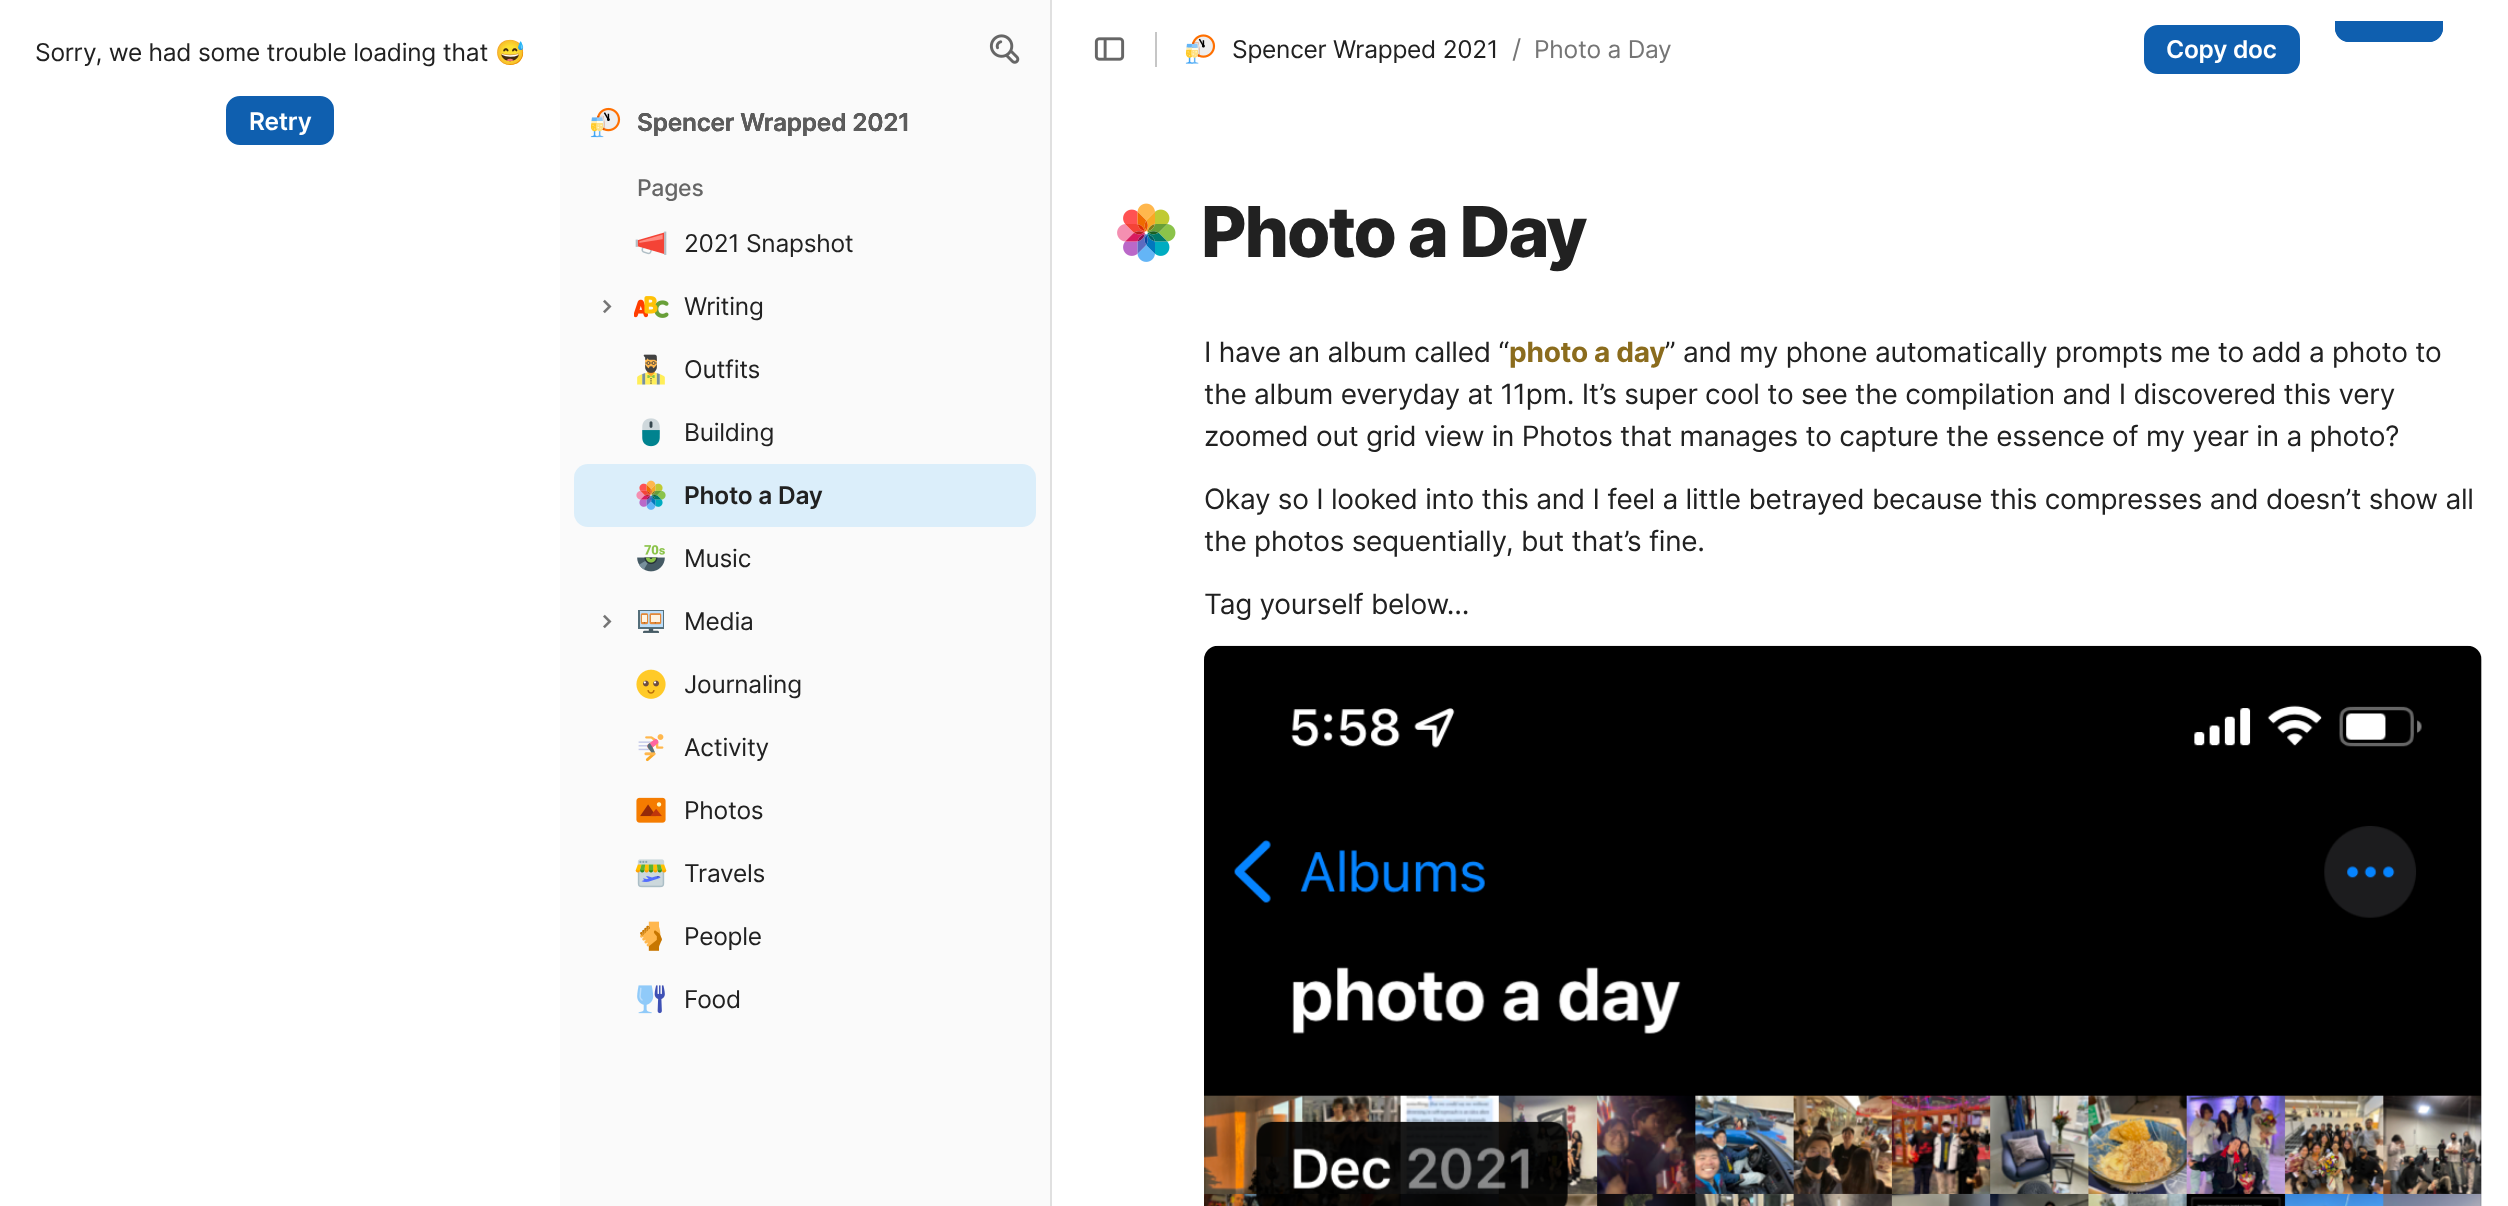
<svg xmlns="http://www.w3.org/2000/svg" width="2508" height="1206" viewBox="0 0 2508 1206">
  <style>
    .t1 { font: 24.5px Inter; letter-spacing: -0.25px; fill: #212121; }
    .t2 { font: 24.5px Noto Color Emoji; letter-spacing: -0.25px; fill: #212121; }
    .t3 { font: 600 24.5px Inter; letter-spacing: -0.25px; fill: #fff; }
    .t4 { font: 600 24.5px Inter; letter-spacing: -0.25px; fill: #212121; }
    .t5 { font: 600 24.5px Inter; letter-spacing: -0.25px; fill: #5c5c5c; }
    .t6 { font: 500 23px Inter; letter-spacing: -0.25px; fill: #666; }
    .t7 { font: 26px Inter; letter-spacing: -0.25px; fill: #757575; }
    .t8 { font: 24.5px Inter; letter-spacing: -0.25px; fill: #757575; }
    .t9 { font: 800 70px Inter; letter-spacing: -2.1px; fill: #212121; }
    .t10 { font: 28px Inter; letter-spacing: -0.28px; fill: #212121; }
    .t11 { font: bold 28px Inter; letter-spacing: -0.28px; fill: #8b6c1d; }
  </style>
  <defs>
    <clipPath id="clip1"><rect x="2109" y="21" width="369" height="56"/></clipPath>
  </defs>
  <rect width="100%" height="100%" fill="#fff"/>
  <text x="35" y="61" class="t1">Sorry, we had some trouble loading that</text>
  <text x="495" y="61" class="t2">😅</text>
  <rect x="227" y="97" width="106" height="47" rx="13" fill="#0f5faf" stroke="#0f5faf" stroke-width="2"/>
  <text x="249" y="130" class="t3">Retry</text>
  <rect x="560" y="0" width="490" height="1206" fill="#fafafa"/>
  <rect x="1050" y="0" width="2" height="1206" fill="#e0e0e0"/>
  <image x="989" y="34" width="31" height="30" href="images/1.png"/>
  <image x="590" y="107" width="31" height="31" href="images/2.png"/>
  <text x="637" y="131" class="t4">Spencer Wrapped 2021</text>
  <text x="637" y="131" class="t5">Spencer Wrapped 2021</text>
  <text x="637" y="196" class="t6">Pages</text>
  <image x="635" y="231" width="32" height="24" href="images/3.png"/>
  <text x="684" y="252" class="t1">2021 Snapshot</text>
  <image x="603" y="299" width="9" height="15" href="images/4.png"/>
  <image x="634" y="296" width="35" height="22" href="images/5.png"/>
  <text x="684" y="315" class="t1">Writing</text>
  <image x="637" y="354" width="28" height="31" href="images/6.png"/>
  <text x="684" y="378" class="t1">Outfits</text>
  <image x="642" y="418" width="18" height="29" href="images/7.png"/>
  <text x="684" y="441" class="t1">Building</text>
  <rect x="574" y="464" width="462" height="63" rx="14" fill="#dbeefa"/>
  <image x="636" y="480" width="30" height="30" href="images/8.png"/>
  <text x="684" y="504" class="t4">Photo a Day</text>
  <image x="637" y="545" width="28" height="27" href="images/9.png"/>
  <text x="684" y="567" class="t1">Music</text>
  <image x="603" y="614" width="9" height="15" href="images/4.png"/>
  <image x="638" y="610" width="26" height="23" href="images/10.png"/>
  <text x="684" y="630" class="t1">Media</text>
  <image x="636" y="669" width="30" height="30" href="images/11.png"/>
  <text x="684" y="693" class="t1">Journaling</text>
  <image x="638" y="734" width="26" height="28" href="images/12.png"/>
  <text x="684" y="756" class="t1">Activity</text>
  <image x="636" y="797" width="30" height="26" href="images/13.png"/>
  <text x="684" y="819" class="t1">Photos</text>
  <image x="635" y="859" width="32" height="29" href="images/14.png"/>
  <text x="684" y="882" class="t1">Travels</text>
  <image x="640" y="921" width="22" height="30" href="images/15.png"/>
  <text x="684" y="945" class="t1">People</text>
  <image x="637" y="985" width="28" height="29" href="images/16.png"/>
  <text x="684" y="1008" class="t1">Food</text>
  <image x="1094" y="37" width="31" height="24" href="images/17.png"/>
  <rect x="1155" y="32" width="2" height="35" fill="#c6c6c6"/>
  <image x="1185" y="34" width="31" height="30" href="images/18.png"/>
  <text x="1232" y="58" class="t1">Spencer Wrapped 2021</text>
  <text x="1512" y="58" class="t7">/</text>
  <text x="1534" y="58" class="t8">Photo a Day</text>
  <path d="M2335 21H2443V28C2443 35.5 2436.5 42 2429 42H2349C2341.5 42 2335 35.5 2335 28Z" fill="#0f5faf"/>
  <g clip-path="url(#clip1)">
    <rect x="2336" y="-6" width="106" height="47" rx="13" fill="none" stroke="#0f5faf" stroke-width="2"/>
  </g>
  <rect x="2145" y="26" width="154" height="47" rx="13" fill="#0f5faf" stroke="#0f5faf" stroke-width="2"/>
  <text x="2166" y="58" class="t3">Copy doc</text>
  <image x="1117" y="203" width="59" height="59" href="images/19.png"/>
  <text x="1201" y="257" class="t9">Photo a Day</text>
  <text x="1204" y="362" class="t10">I have an album called “</text>
  <text x="1509" y="362" class="t11">photo a day</text>
  <text x="1665" y="362" class="t10">” and my phone automatically prompts me to add a photo to</text>
  <text x="1204" y="404" class="t10">the album everyday at 11pm. It’s super cool to see the compilation and I discovered this very</text>
  <text x="1204" y="446" class="t10">zoomed out grid view in Photos that manages to capture the essence of my year in a photo?</text>
  <text x="1204" y="509" class="t10">Okay so I looked into this and I feel a little betrayed because this compresses and doesn’t show all</text>
  <text x="1204" y="551" class="t10">the photos sequentially, but that’s fine.</text>
  <text x="1204" y="614" class="t10">Tag yourself below...</text>
  <image x="1204" y="645" width="1278" height="561" href="images/20.png"/>
  <rect x="1205" y="647" width="1276" height="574" rx="13" fill="none" stroke="#00000014" stroke-width="2"/>
</svg>
